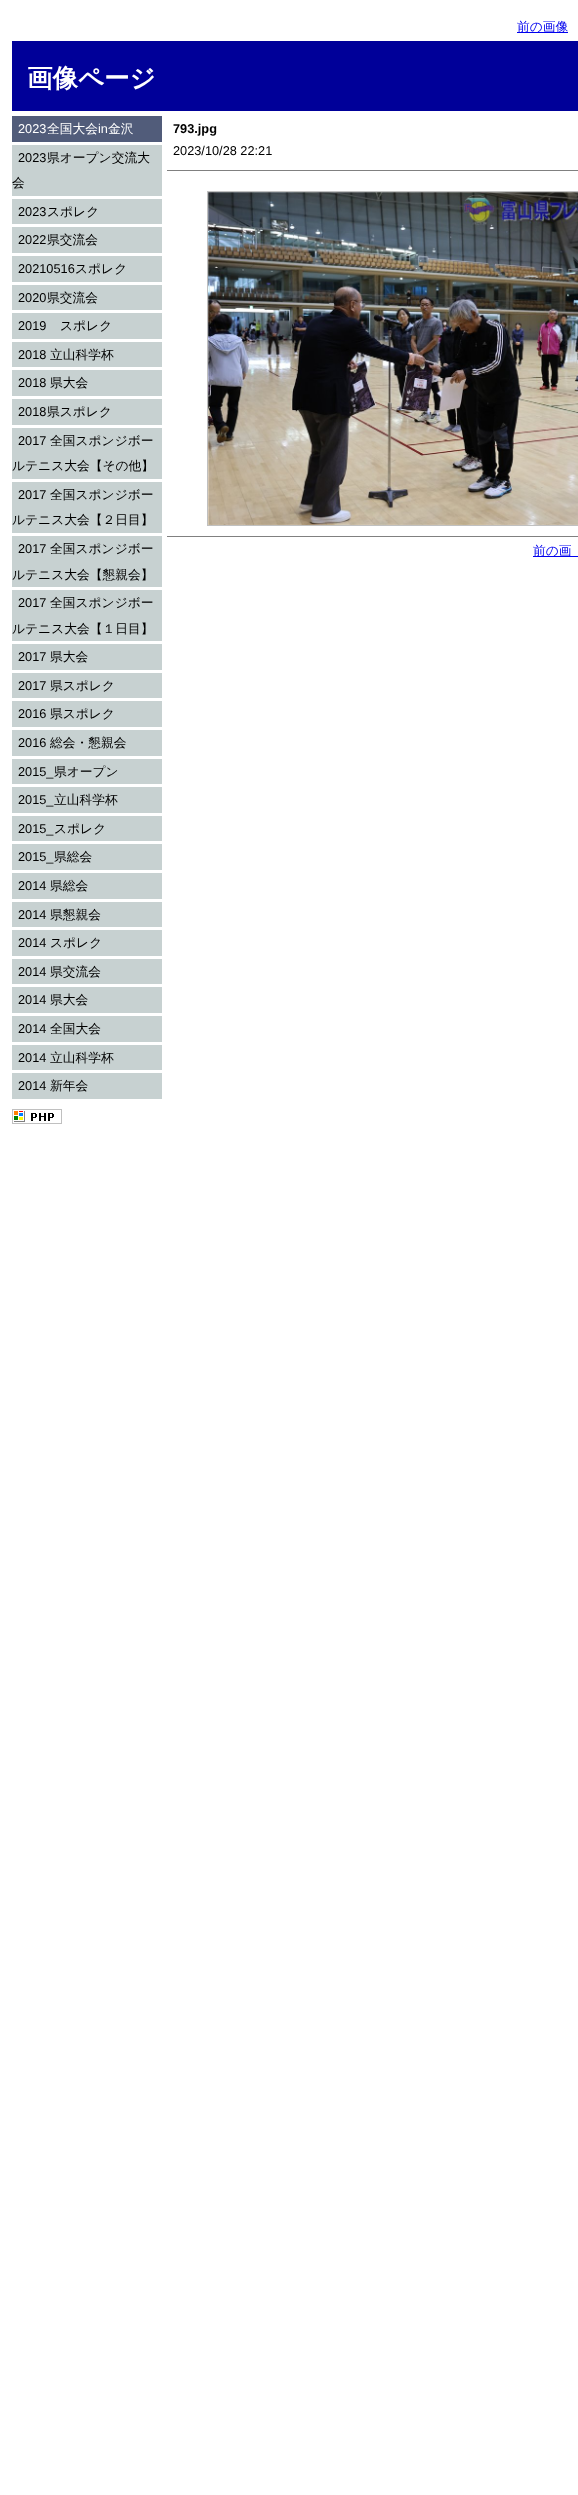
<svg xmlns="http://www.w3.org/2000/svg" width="578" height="2495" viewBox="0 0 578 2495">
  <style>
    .t1 { font: 500 12.75px WenQuanYi Zen Hei; fill: #00e; }
    .t2 { font: bold 25.5px WenQuanYi Zen Hei; fill: #fff; }
    .t3 { font: 12.75px Liberation Sans; fill: #fff; }
    .t4 { font: 500 12.75px WenQuanYi Zen Hei; fill: #fff; }
    .t5 { font: 12.75px Liberation Sans; fill: #000; }
    .t6 { font: 500 12.75px WenQuanYi Zen Hei; fill: #000; }
    .t7 { font: bold 12.75px Liberation Sans; fill: #000; }
  </style>
  <rect width="100%" height="100%" fill="#fff"/>
  <rect x="517" y="32" width="51" height="1" fill="#00e"/>
  <text x="517" y="31" class="t1">前の画像</text>
  <rect x="12" y="41" width="566" height="70" fill="#009"/>
  <text x="27" y="87" class="t2">画像ページ</text>
  <rect x="12" y="145" width="150" height="954" fill="#c7d1d1"/>
  <rect x="12" y="116" width="150" height="26" fill="#515c7a"/>
  <text x="18" y="133" class="t3">2023</text>
  <text x="47" y="133" class="t4">全国大会</text>
  <text x="98" y="133" class="t3">in</text>
  <text x="108" y="133" class="t4">金沢</text>
  <rect x="12" y="196" width="150" height="3" fill="#fff"/>
  <text x="18" y="162" class="t5">2023</text>
  <text x="47" y="162" class="t6">県オープン交流大</text>
  <text x="12" y="187" class="t6">会</text>
  <rect x="12" y="224" width="150" height="3" fill="#fff"/>
  <text x="18" y="216" class="t5">2023</text>
  <text x="47" y="216" class="t6">スポレク</text>
  <rect x="12" y="253" width="150" height="3" fill="#fff"/>
  <text x="18" y="244" class="t5">2022</text>
  <text x="47" y="244" class="t6">県交流会</text>
  <rect x="12" y="282" width="150" height="3" fill="#fff"/>
  <text x="18" y="273" class="t5">20210516</text>
  <text x="75" y="273" class="t6">スポレク</text>
  <rect x="12" y="310" width="150" height="3" fill="#fff"/>
  <text x="18" y="302" class="t5">2020</text>
  <text x="47" y="302" class="t6">県交流会</text>
  <rect x="12" y="339" width="150" height="3" fill="#fff"/>
  <text x="18" y="330" class="t5">2019</text>
  <text x="60" y="330" class="t6">スポレク</text>
  <rect x="12" y="367" width="150" height="3" fill="#fff"/>
  <text x="18" y="359" class="t5">2018</text>
  <text x="50" y="359" class="t6">立山科学杯</text>
  <rect x="12" y="396" width="150" height="3" fill="#fff"/>
  <text x="18" y="387" class="t5">2018</text>
  <text x="50" y="387" class="t6">県大会</text>
  <rect x="12" y="425" width="150" height="3" fill="#fff"/>
  <text x="18" y="416" class="t5">2018</text>
  <text x="47" y="416" class="t6">県スポレク</text>
  <rect x="12" y="479" width="150" height="3" fill="#fff"/>
  <text x="18" y="445" class="t5">2017</text>
  <text x="50" y="445" class="t6">全国スポンジボー</text>
  <text x="12" y="470" class="t6">ルテニス大会【その他】</text>
  <rect x="12" y="533" width="150" height="3" fill="#fff"/>
  <text x="18" y="499" class="t5">2017</text>
  <text x="50" y="499" class="t6">全国スポンジボー</text>
  <text x="12" y="524" class="t6">ルテニス大会【２日目】</text>
  <rect x="12" y="587" width="150" height="3" fill="#fff"/>
  <text x="18" y="553" class="t5">2017</text>
  <text x="50" y="553" class="t6">全国スポンジボー</text>
  <text x="12" y="579" class="t6">ルテニス大会【懇親会】</text>
  <rect x="12" y="641" width="150" height="3" fill="#fff"/>
  <text x="18" y="607" class="t5">2017</text>
  <text x="50" y="607" class="t6">全国スポンジボー</text>
  <text x="12" y="633" class="t6">ルテニス大会【１日目】</text>
  <rect x="12" y="670" width="150" height="3" fill="#fff"/>
  <text x="18" y="661" class="t5">2017</text>
  <text x="50" y="661" class="t6">県大会</text>
  <rect x="12" y="698" width="150" height="3" fill="#fff"/>
  <text x="18" y="690" class="t5">2017</text>
  <text x="50" y="690" class="t6">県スポレク</text>
  <rect x="12" y="727" width="150" height="3" fill="#fff"/>
  <text x="18" y="718" class="t5">2016</text>
  <text x="50" y="718" class="t6">県スポレク</text>
  <rect x="12" y="756" width="150" height="3" fill="#fff"/>
  <text x="18" y="747" class="t5">2016</text>
  <text x="50" y="747" class="t6">総会・懇親会</text>
  <rect x="12" y="784" width="150" height="3" fill="#fff"/>
  <text x="18" y="776" class="t5">2015_</text>
  <text x="54" y="776" class="t6">県オープン</text>
  <rect x="12" y="813" width="150" height="3" fill="#fff"/>
  <text x="18" y="804" class="t5">2015_</text>
  <text x="54" y="804" class="t6">立山科学杯</text>
  <rect x="12" y="841" width="150" height="3" fill="#fff"/>
  <text x="18" y="833" class="t5">2015_</text>
  <text x="54" y="833" class="t6">スポレク</text>
  <rect x="12" y="870" width="150" height="3" fill="#fff"/>
  <text x="18" y="861" class="t5">2015_</text>
  <text x="54" y="861" class="t6">県総会</text>
  <rect x="12" y="899" width="150" height="3" fill="#fff"/>
  <text x="18" y="890" class="t5">2014</text>
  <text x="50" y="890" class="t6">県総会</text>
  <rect x="12" y="927" width="150" height="3" fill="#fff"/>
  <text x="18" y="919" class="t5">2014</text>
  <text x="50" y="919" class="t6">県懇親会</text>
  <rect x="12" y="956" width="150" height="3" fill="#fff"/>
  <text x="18" y="947" class="t5">2014</text>
  <text x="50" y="947" class="t6">スポレク</text>
  <rect x="12" y="984" width="150" height="3" fill="#fff"/>
  <text x="18" y="976" class="t5">2014</text>
  <text x="50" y="976" class="t6">県交流会</text>
  <rect x="12" y="1013" width="150" height="3" fill="#fff"/>
  <text x="18" y="1004" class="t5">2014</text>
  <text x="50" y="1004" class="t6">県大会</text>
  <rect x="12" y="1042" width="150" height="3" fill="#fff"/>
  <text x="18" y="1033" class="t5">2014</text>
  <text x="50" y="1033" class="t6">全国大会</text>
  <rect x="12" y="1070" width="150" height="3" fill="#fff"/>
  <text x="18" y="1062" class="t5">2014</text>
  <text x="50" y="1062" class="t6">立山科学杯</text>
  <text x="18" y="1090" class="t5">2014</text>
  <text x="50" y="1090" class="t6">新年会</text>
  <image x="12" y="1109" width="50" height="15" href="images/1.png"/>
  <text x="173" y="133" class="t7">793.jpg</text>
  <text x="173" y="155" class="t5">2023/10/28 22:21</text>
  <rect x="167" y="170" width="411" height="1" fill="#808080"/>
  <rect x="167" y="536" width="411" height="1" fill="#808080"/>
  <rect x="207.5" y="191.5" width="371" height="334" fill="none" stroke="#c0c0c0"/>
  <image x="208" y="192" width="370" height="333" href="images/2.png"/>
  <rect x="533" y="556" width="45" height="1" fill="#00e"/>
  <text x="533" y="555" class="t1">前の画</text>
</svg>
